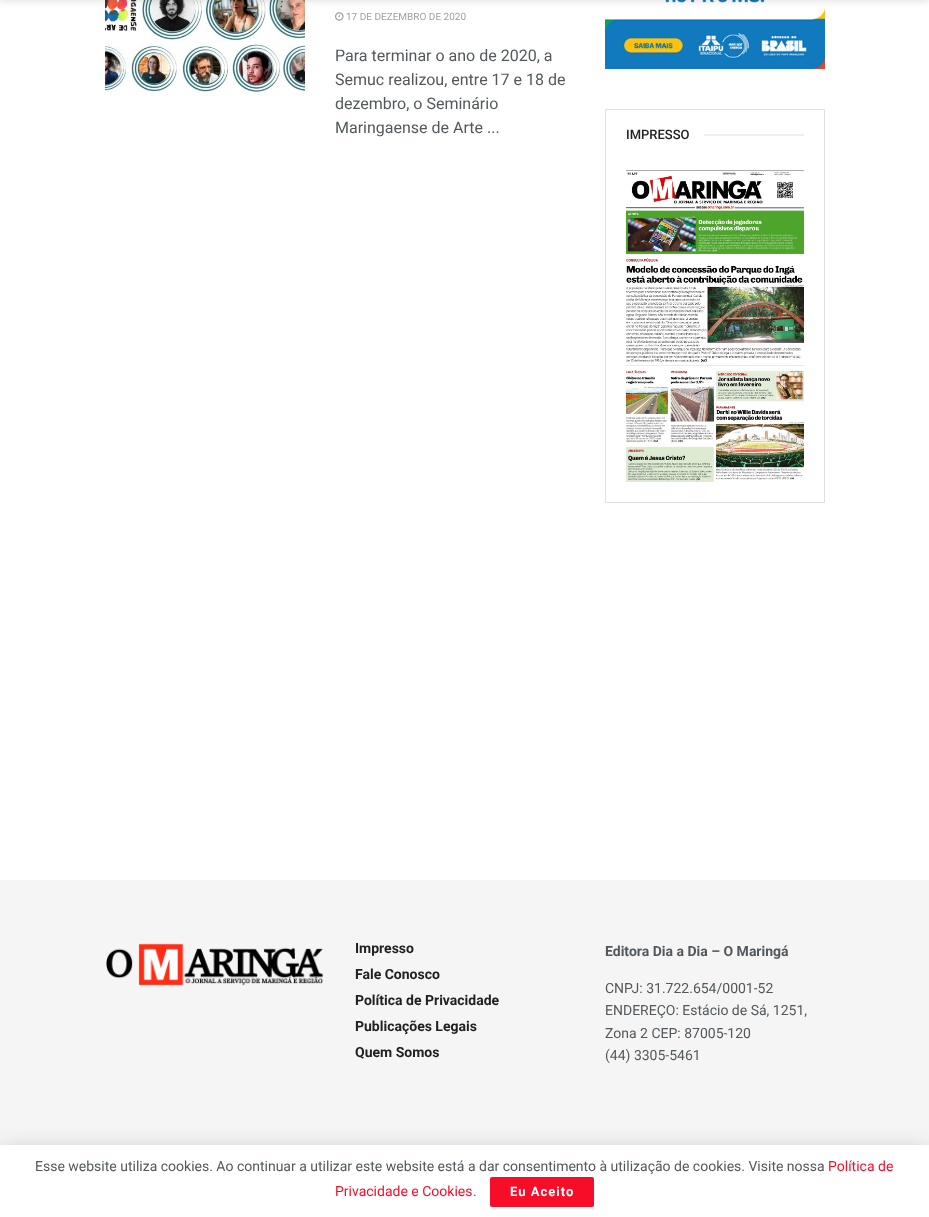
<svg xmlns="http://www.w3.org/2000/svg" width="929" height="1217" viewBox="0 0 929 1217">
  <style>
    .t1 { font: 10px Roboto; fill: #a0a0a0; }
    .t2 { font: 16px Roboto; fill: #53585c; }
    .t3 { font: 500 13px Roboto; fill: #212121; }
    .t4 { font: bold 14px Roboto; fill: #212121; }
    .t5 { font: bold 14px Roboto; fill: #53585c; }
    .t6 { font: 14px Roboto; fill: #53585c; }
    .t7 { font: 14px Roboto; fill: #f70d28; }
    .t8 { font: bold 13px Roboto; letter-spacing: 1px; fill: #fff; }
  </style>
  <rect width="100%" height="100%" fill="#fff"/>
  <image x="105" y="0" width="200" height="102" href="images/1.png"/>
  <image x="605" y="0" width="220" height="69" href="images/3.png"/>
  <rect x="0" y="-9" width="929" height="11" fill="#0000001a" filter="blur(3px)"/>
  <image x="335" y="12" width="9" height="9" href="images/2.png"/>
  <text x="346" y="20" class="t1">17 DE DEZEMBRO DE 2020</text>
  <text x="335" y="61" class="t2">Para terminar o ano de 2020, a</text>
  <text x="335" y="85" class="t2">Semuc realizou, entre 17 e 18 de</text>
  <text x="335" y="109" class="t2">dezembro, o Seminário</text>
  <text x="335" y="133" class="t2">Maringaense de Arte ...</text>
  <rect x="605.5" y="109.5" width="219" height="393" fill="none" stroke="#e0e0e0"/>
  <text x="626" y="139" class="t3">IMPRESSO</text>
  <rect x="704" y="134" width="100" height="2" fill="#eee"/>
  <image x="626" y="170" width="178" height="312" href="images/4.png"/>
  <rect x="0" y="880" width="929" height="265" fill="#f5f5f5"/>
  <image x="106" y="943" width="218" height="43" href="images/5.png"/>
  <text x="355" y="953" class="t4">Impresso</text>
  <text x="355" y="979" class="t4">Fale Conosco</text>
  <text x="355" y="1005" class="t4">Política de Privacidade</text>
  <text x="355" y="1031" class="t4">Publicações Legais</text>
  <text x="355" y="1057" class="t4">Quem Somos</text>
  <text x="605" y="956" class="t5">Editora Dia a Dia – O Maringá</text>
  <text x="605" y="993" class="t6">CNPJ: 31.722.654/0001-52</text>
  <text x="605" y="1015" class="t6">ENDEREÇO: Estácio de Sá, 1251,</text>
  <text x="605" y="1038" class="t6">Zona 2 CEP: 87005-120</text>
  <text x="605" y="1060" class="t6">(44) 3305-5461</text>
  <rect x="0" y="1147" width="929" height="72" fill="#00000026" filter="blur(10px)"/>
  <rect x="0" y="1145" width="929" height="72" fill="#00000033" filter="blur(0.5px)"/>
  <rect x="0" y="1145" width="929" height="72" fill="#fff"/>
  <text x="35" y="1171" class="t6">Esse website utiliza cookies. Ao continuar a utilizar este website está a dar consentimento à utilização de cookies. Visite nossa</text>
  <text x="828" y="1171" class="t7">Política de</text>
  <text x="335" y="1196" class="t7">Privacidade e Cookies</text>
  <text x="473" y="1196" class="t6">.</text>
  <rect x="490" y="1177" width="104" height="30" rx="2" fill="#f70d28"/>
  <text x="510" y="1196" class="t8">Eu Aceito</text>
</svg>
